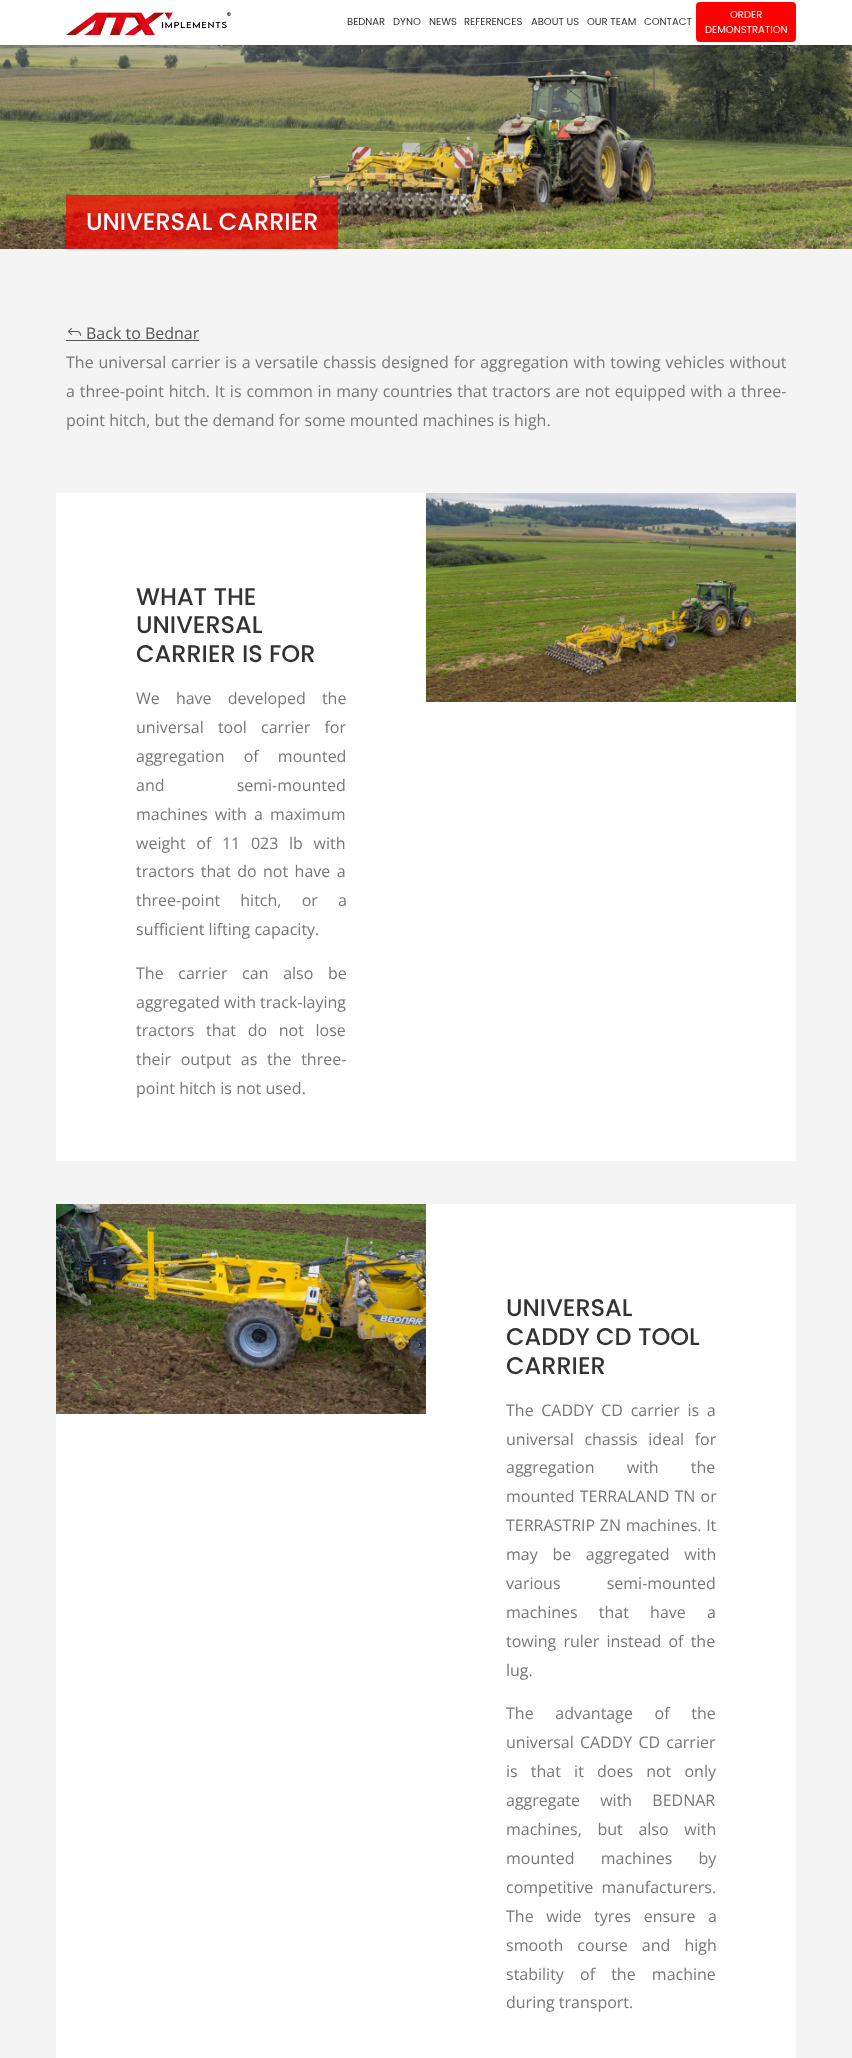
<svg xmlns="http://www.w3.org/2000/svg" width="852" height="2058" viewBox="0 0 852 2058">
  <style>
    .t1 { font: 10px Poppins; fill: #333; }
    .t2 { font: 10px Poppins; fill: #fff; }
    .t3 { font: 500 24px Poppins; fill: #fff; }
    .t4 { font: 16px Open Sans; fill: #555; }
    .t5 { font: 16px Open Sans; fill: #777; }
    .t6 { font: 500 24px Poppins; fill: #333; }
  </style>
  <rect width="100%" height="100%" fill="#f4f4f4"/>
  <image x="0" y="45" width="852" height="204" href="images/2.png"/>
  <rect x="0" y="0" width="852" height="45" fill="#00000026" filter="blur(2.5px)"/>
  <rect x="0" y="0" width="852" height="45" fill="#fff"/>
  <image x="66" y="12" width="165" height="23" href="images/1.png"/>
  <text x="347" y="25" class="t1">BEDNAR</text>
  <text x="393" y="25" class="t1">DYNO</text>
  <text x="429" y="25" class="t1">NEWS</text>
  <text x="464" y="25" class="t1">REFERENCES</text>
  <text x="531" y="25" class="t1">ABOUT US</text>
  <text x="587" y="25" class="t1">OUR TEAM</text>
  <text x="644" y="25" class="t1">CONTACT</text>
  <rect x="696" y="2" width="100" height="40" rx="4" fill="#f00"/>
  <text x="730" y="18" class="t2">ORDER</text>
  <text x="705" y="33" class="t2">DEMONSTRATION</text>
  <rect x="66" y="195" width="272" height="54" fill="#ff0000b3"/>
  <text x="86" y="230" class="t3">UNIVERSAL CARRIER</text>
  <image x="68" y="328" width="13" height="8" href="images/3.png"/>
  <text x="86" y="339" class="t4">Back to Bednar</text>
  <rect x="66" y="340" width="133" height="1" fill="#555"/>
  <text x="66" y="368" word-spacing="0.7" class="t5">The universal carrier is a versatile chassis designed for aggregation with towing vehicles without</text>
  <text x="66" y="397" word-spacing="0.7" class="t5">a three-point hitch. It is common in many countries that tractors are not equipped with a three-</text>
  <text x="66" y="426" class="t5">point hitch, but the demand for some mounted machines is high.</text>
  <rect x="56" y="493" width="740" height="668" fill="#fff"/>
  <text x="136" y="605" class="t6">WHAT THE</text>
  <text x="136" y="633" class="t6">UNIVERSAL</text>
  <text x="136" y="662" class="t6">CARRIER IS FOR</text>
  <text x="136" y="704" word-spacing="12" class="t5">We have developed the</text>
  <text x="136" y="733" word-spacing="10" class="t5">universal tool carrier for</text>
  <text x="136" y="762" word-spacing="15" class="t5">aggregation of mounted</text>
  <text x="136" y="791" word-spacing="68" class="t5">and semi-mounted</text>
  <text x="136" y="820" word-spacing="3" class="t5">machines with a maximum</text>
  <text x="136" y="849" word-spacing="6.5" class="t5">weight of 11 023 lb with</text>
  <text x="136" y="877" word-spacing="2.25" class="t5">tractors that do not have a</text>
  <text x="136" y="906" word-spacing="16" class="t5">three-point hitch, or a</text>
  <text x="136" y="935" class="t5">sufficient lifting capacity.</text>
  <text x="136" y="979" word-spacing="10.5" class="t5">The carrier can also be</text>
  <text x="136" y="1008" class="t5">aggregated with track-laying</text>
  <text x="136" y="1036" word-spacing="7.5" class="t5">tractors that do not lose</text>
  <text x="136" y="1065" word-spacing="5.5" class="t5">their output as the three-</text>
  <text x="136" y="1094" class="t5">point hitch is not used.</text>
  <image x="426" y="493" width="370" height="209" href="images/4.png"/>
  <rect x="56" y="1204" width="740" height="854" fill="#fff"/>
  <image x="56" y="1204" width="370" height="210" href="images/5.png"/>
  <text x="506" y="1316" class="t6">UNIVERSAL</text>
  <text x="506" y="1345" class="t6">CADDY CD TOOL</text>
  <text x="506" y="1374" class="t6">CARRIER</text>
  <text x="506" y="1416" word-spacing="3.5" class="t5">The CADDY CD carrier is a</text>
  <text x="506" y="1445" word-spacing="6.5" class="t5">universal chassis ideal for</text>
  <text x="506" y="1473" word-spacing="28" class="t5">aggregation with the</text>
  <text x="506" y="1502" word-spacing="1" class="t5">mounted TERRALAND TN or</text>
  <text x="506" y="1531" word-spacing="0.5" class="t5">TERRASTRIP ZN machines. It</text>
  <text x="506" y="1560" word-spacing="10.5" class="t5">may be aggregated with</text>
  <text x="506" y="1589" word-spacing="42" class="t5">various semi-mounted</text>
  <text x="506" y="1618" word-spacing="17" class="t5">machines that have a</text>
  <text x="506" y="1647" word-spacing="3" class="t5">towing ruler instead of the</text>
  <text x="506" y="1676" class="t5">lug.</text>
  <text x="506" y="1719" word-spacing="17.5" class="t5">The advantage of the</text>
  <text x="506" y="1748" word-spacing="2" class="t5">universal CADDY CD carrier</text>
  <text x="506" y="1777" word-spacing="9" class="t5">is that it does not only</text>
  <text x="506" y="1806" word-spacing="16" class="t5">aggregate with BEDNAR</text>
  <text x="506" y="1835" word-spacing="11.5" class="t5">machines, but also with</text>
  <text x="506" y="1864" word-spacing="22" class="t5">mounted machines by</text>
  <text x="506" y="1893" word-spacing="4" class="t5">competitive manufacturers.</text>
  <text x="506" y="1922" word-spacing="8.5" class="t5">The wide tyres ensure a</text>
  <text x="506" y="1951" word-spacing="10" class="t5">smooth course and high</text>
  <text x="506" y="1980" word-spacing="12" class="t5">stability of the machine</text>
  <text x="506" y="2008" class="t5">during transport.</text>
</svg>
